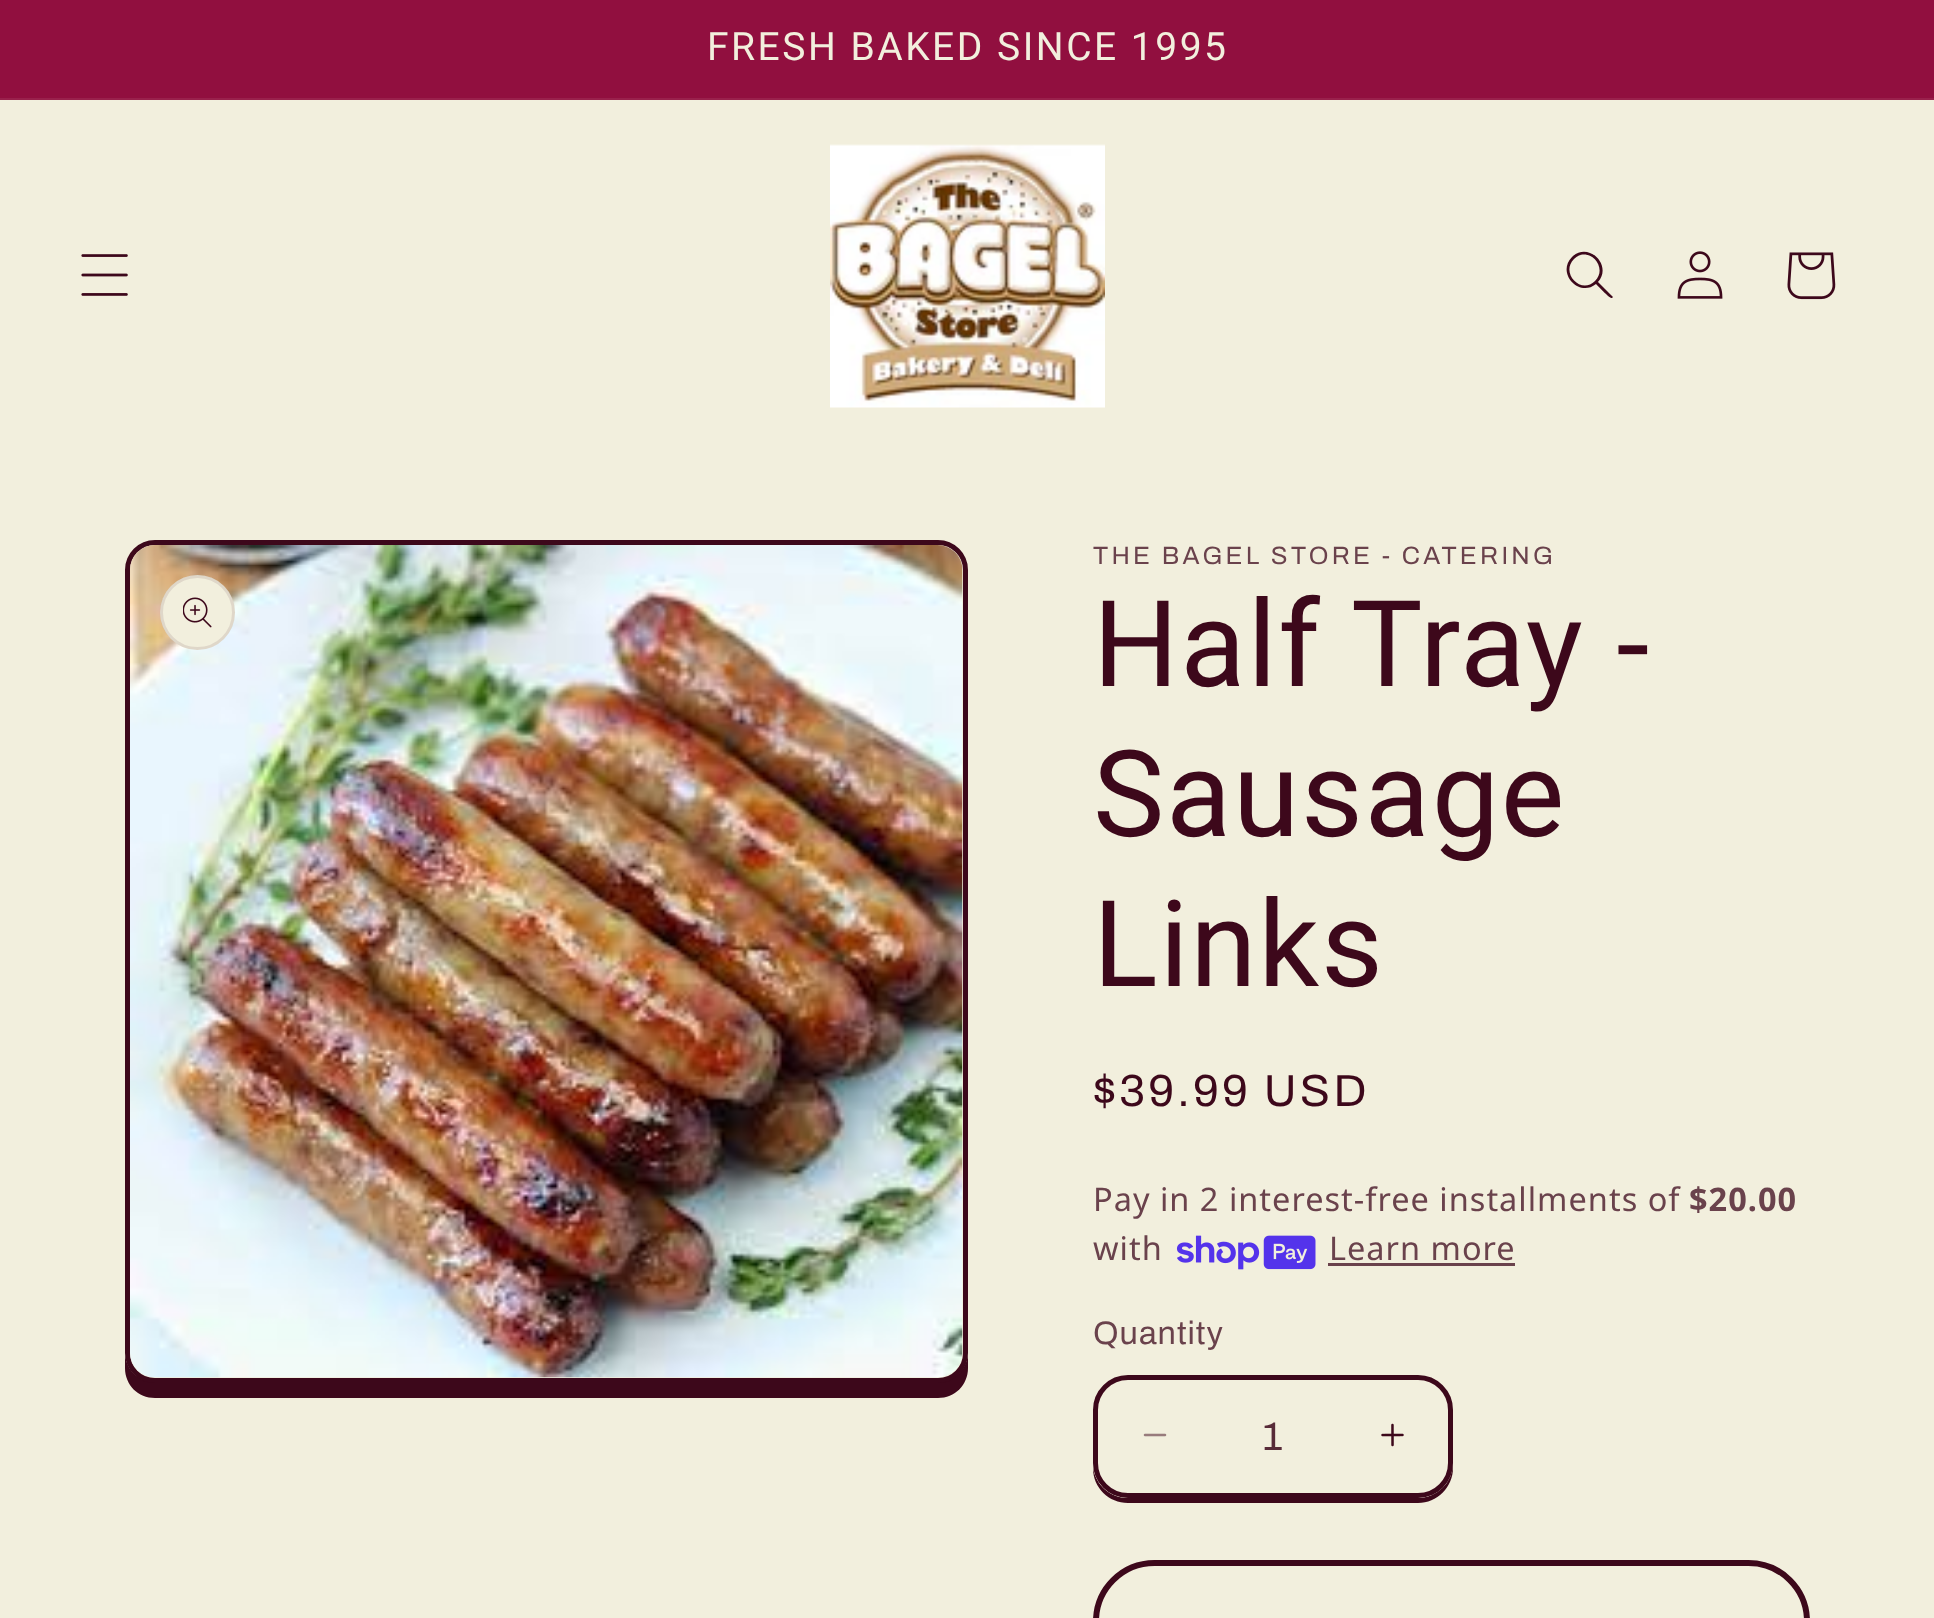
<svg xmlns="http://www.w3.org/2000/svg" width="1934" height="1618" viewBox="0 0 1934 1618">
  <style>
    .t1 { font: 39px Roboto; letter-spacing: 2.5px; fill: #f2efdd; }
    .t2 { font: 25px Archivo; letter-spacing: 3.25px; fill: #6a424c; }
    .t3 { font: 120px Roboto; letter-spacing: 1.75px; fill: #3d081b; }
    .t4 { font: 45px Archivo; letter-spacing: 3.25px; fill: #3d081b; }
    .t5 { font: 32.5px Noto Sans; letter-spacing: 1px; fill: #6a424c; }
    .t6 { font: bold 32.5px Noto Sans; letter-spacing: 1px; fill: #6a424c; }
    .t7 { font: 32.5px Archivo; letter-spacing: 1px; fill: #6a424c; }
    .t8 { font: 40px Archivo; fill: #582b38; }
  </style>
  <rect width="100%" height="100%" fill="#f2efdd"/>
  <rect x="0" y="0" width="1934" height="98" fill="#910f3f"/>
  <rect x="0" y="98" width="1934" height="2" fill="#99214c"/>
  <text x="707" y="60" class="t1">FRESH BAKED SINCE 1995</text>
  <image x="81" y="254" width="47" height="42" href="images/1.png"/>
  <image x="830" y="144" width="275" height="264" href="images/2.png"/>
  <path d="M1595 281C1581 295 1560 273 1574 259C1588 245 1609 267 1595 281ZM1596 284C1579 298 1556 273 1572 257C1588 241 1613 265 1598 282L1613 297L1612 298C1610 299 1598 286 1596 284Z" fill="#3d081b" fill-rule="evenodd"/>
  <image x="1677" y="251" width="46" height="48" href="images/3.png"/>
  <image x="1787" y="252" width="49" height="48" href="images/4.png"/>
  <path d="M125 1352V1368C125 1385 138 1398 155 1398H938C955 1398 968 1385 968 1368V585V580V1352C968 1369 954 1382 938 1382H155C138 1382 125 1369 125 1352Z" fill="#3d081b"/>
  <rect x="127.5" y="542.5" width="838" height="838" rx="27.5" fill="#f2efdd" stroke="#3d081b" stroke-width="5"/>
  <image x="130" y="545" width="833" height="833" href="images/5.png"/>
  <circle cx="197.5" cy="612.5" r="37.5" fill="#f2efdd"/>
  <circle cx="197.5" cy="612.5" r="36" fill="none" stroke="#3d081b1a" stroke-width="3"/>
  <image x="183" y="597" width="29" height="31" href="images/6.png"/>
  <text x="1093" y="564" class="t2">THE BAGEL STORE - CATERING</text>
  <text x="1093" y="686" class="t3">Half Tray -</text>
  <text x="1093" y="836" class="t3">Sausage</text>
  <text x="1093" y="986" class="t3">Links</text>
  <text x="1093" y="1106" class="t4">$39.99 USD</text>
  <text x="1093" y="1211" class="t5">Pay in 2 interest-free installments of</text>
  <text x="1689" y="1211" class="t6">$20.00</text>
  <text x="1093" y="1260" class="t5">with</text>
  <image x="1176" y="1235" width="140" height="35" href="images/7.png"/>
  <text x="1329" y="1260" class="t5">Learn more</text>
  <rect x="1328" y="1263" width="187" height="3" fill="#6a424c"/>
  <text x="1093" y="1344" class="t7">Quantity</text>
  <path d="M1093 1468C1093 1488 1109 1503 1128 1503H1418C1437 1503 1453 1487 1453 1468V1415L1452 1409V1462C1452 1482 1437 1498 1418 1498H1128C1110 1498 1096 1485 1093 1468Z" fill="#3d081b"/>
  <rect x="1093" y="1375" width="360" height="123" rx="35" fill="#f2efdd"/>
  <image x="1143" y="1433" width="24" height="4" href="images/8.png"/>
  <image x="1381" y="1423" width="23" height="24" href="images/9.png"/>
  <rect x="1095.5" y="1377.5" width="355" height="118" rx="32.5" fill="none" stroke="#3d081b" stroke-width="5"/>
  <text x="1262" y="1450" class="t8">1</text>
  <rect x="1096" y="1563" width="711" height="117" rx="58.5" fill="none" stroke="#3d081b" stroke-width="6"/>
</svg>
